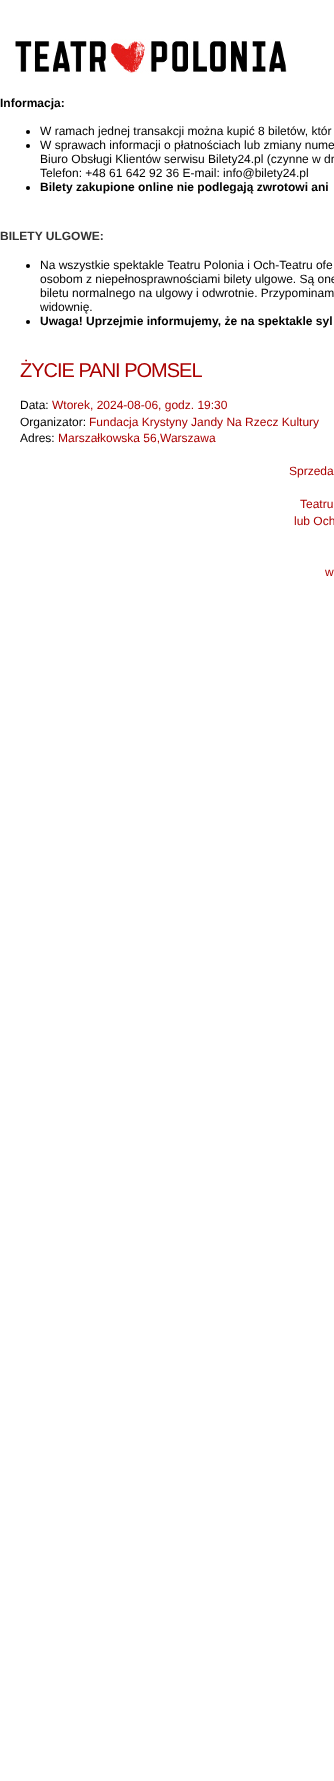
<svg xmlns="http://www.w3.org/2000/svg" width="334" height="1781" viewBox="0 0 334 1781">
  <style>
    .t1 { font: bold 12px Liberation Sans; fill: #000; }
    .t2 { font: 12px Liberation Sans; fill: #000; }
    .t3 { font: bold 12px Liberation Sans; fill: #333; }
    .t4 { font: 20px Liberation Sans; letter-spacing: -1px; fill: #aa0101; }
    .t5 { font: 12px Liberation Sans; fill: #aa0101; }
  </style>
  <rect width="100%" height="100%" fill="#fff"/>
  <image x="15" y="39" width="272" height="35" href="images/1.png"/>
  <text x="0" y="107" class="t1">Informacja:</text>
  <circle cx="28" cy="132" r="2" fill="#000"/>
  <text x="40" y="135" class="t2">W ramach jednej transakcji można kupić 8 biletów, któr</text>
  <circle cx="28" cy="146" r="2" fill="#000"/>
  <text x="40" y="149" class="t2">W sprawach informacji o płatnościach lub zmiany nume</text>
  <text x="40" y="163" class="t2">Biuro Obsługi Klientów serwisu Bilety24.pl (czynne w dn</text>
  <text x="40" y="177" class="t2">Telefon: +48 61 642 92 36 E-mail: info@bilety24.pl</text>
  <circle cx="28" cy="188" r="2" fill="#000"/>
  <text x="40" y="191" class="t1">Bilety zakupione online nie podlegają zwrotowi ani</text>
  <text x="0" y="240" class="t3">BILETY ULGOWE:</text>
  <circle cx="28" cy="266" r="2" fill="#000"/>
  <text x="40" y="269" class="t2">Na wszystkie spektakle Teatru Polonia i Och-Teatru ofe</text>
  <text x="40" y="283" class="t2">osobom z niepełnosprawnościami bilety ulgowe. Są one</text>
  <text x="40" y="297" class="t2">biletu normalnego na ulgowy i odwrotnie. Przypominam</text>
  <text x="40" y="311" class="t2">widownię.</text>
  <circle cx="28" cy="322" r="2" fill="#000"/>
  <text x="40" y="325" class="t1">Uwaga! Uprzejmie informujemy, że na spektakle syl</text>
  <text x="20" y="377" class="t4">ŻYCIE PANI POMSEL</text>
  <text x="20" y="409" class="t2">Data:</text>
  <text x="52" y="409" class="t5">Wtorek, 2024-08-06, godz. 19:30</text>
  <text x="20" y="426" class="t2">Organizator:</text>
  <text x="89" y="426" class="t5">Fundacja Krystyny Jandy Na Rzecz Kultury</text>
  <text x="20" y="442" class="t2">Adres:</text>
  <text x="58" y="442" class="t5">Marszałkowska 56,Warszawa</text>
  <text x="289" y="475" class="t5">Sprzeda</text>
  <text x="300" y="508" class="t5">Teatru</text>
  <text x="294" y="525" class="t5">lub Och</text>
  <text x="325" y="576" class="t5">w</text>
</svg>
